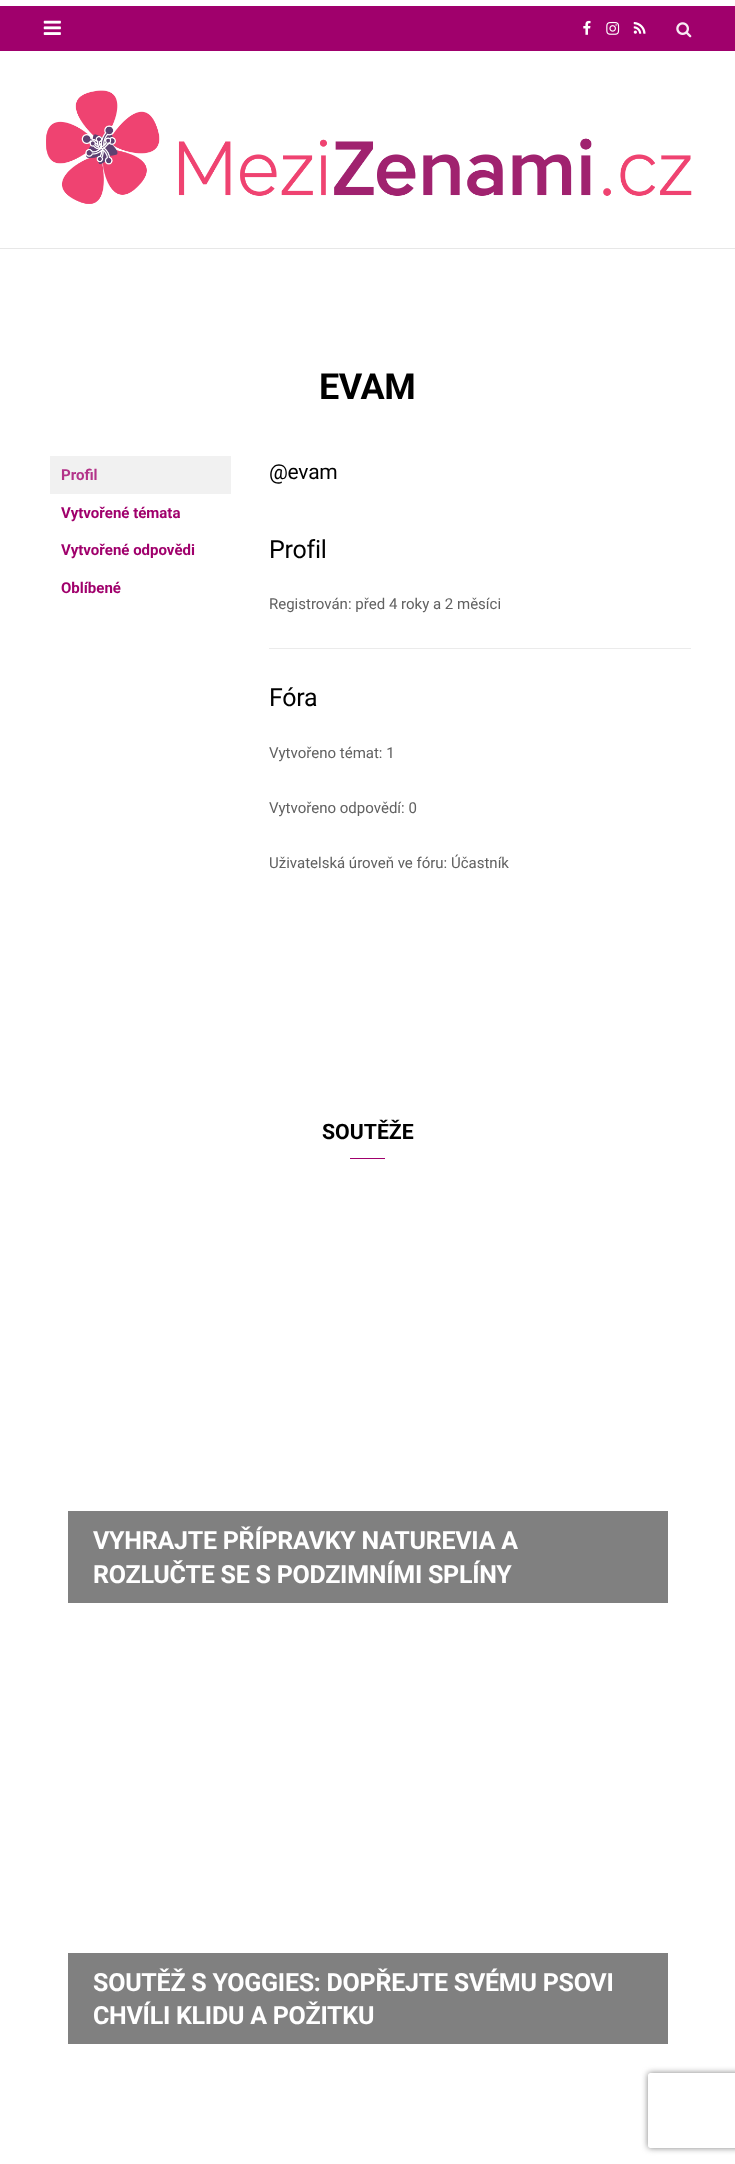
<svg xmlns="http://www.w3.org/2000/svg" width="735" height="2164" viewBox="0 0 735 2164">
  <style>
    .t1 { font: bold 36px Roboto; letter-spacing: -0.5px; fill: #000; }
    .t2 { font: bold 15px Roboto; fill: #b33389; }
    .t3 { font: bold 15px Roboto; fill: #a0006c; }
    .t4 { font: 21px Roboto; letter-spacing: -0.25px; fill: #000; }
    .t5 { font: 25px Roboto; letter-spacing: -0.25px; fill: #000; }
    .t6 { font: 15px Roboto; fill: #616161; }
    .t7 { font: bold 21.25px Roboto; fill: #000; }
    .t8 { font: bold 25px Roboto; letter-spacing: -0.25px; fill: #fff; }
  </style>
  <defs>
    <clipPath id="clip1"><path d="M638 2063H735V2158H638ZM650.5 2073H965.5C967 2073 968 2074 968 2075.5V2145.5C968 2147 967 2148 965.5 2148H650.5C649 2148 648 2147 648 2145.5V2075.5C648 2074 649 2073 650.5 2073Z" clip-rule="evenodd"/></clipPath>
  </defs>
  <rect width="100%" height="100%" fill="#fff"/>
  <rect x="0" y="248" width="735" height="1" fill="#e7e7e7"/>
  <rect x="0" y="6" width="735" height="45" fill="#a0006c"/>
  <image x="43" y="20" width="18" height="15" href="images/1.png"/>
  <image x="583" y="20" width="8" height="15" href="images/2.png"/>
  <image x="606" y="21" width="14" height="14" href="images/3.png"/>
  <image x="633" y="22" width="13" height="12" href="images/4.png"/>
  <image x="676" y="22" width="16" height="16" href="images/5.png"/>
  <image x="46" y="90" width="646" height="114" href="images/6.png"/>
  <text x="319" y="399" class="t1">EVAM</text>
  <rect x="50" y="456" width="181" height="38" fill="#f1f1f1"/>
  <text x="61" y="480" class="t2">Profil</text>
  <text x="61" y="518" class="t3">Vytvořené témata</text>
  <text x="61" y="555" class="t3">Vytvořené odpovědi</text>
  <text x="61" y="593" class="t3">Oblíbené</text>
  <text x="269" y="479" class="t4">@evam</text>
  <text x="269" y="558" class="t5">Profil</text>
  <text x="269" y="609" class="t6">Registrován: před 4 roky a 2 měsíci</text>
  <rect x="269" y="648" width="422" height="1" fill="#ebebeb"/>
  <text x="269" y="706" class="t5">Fóra</text>
  <text x="269" y="758" class="t6">Vytvořeno témat: 1</text>
  <text x="269" y="813" class="t6">Vytvořeno odpovědí: 0</text>
  <text x="269" y="868" class="t6">Uživatelská úroveň ve fóru: Účastník</text>
  <text x="322" y="1139" class="t7">SOUTĚŽE</text>
  <rect x="350" y="1158" width="35" height="1" fill="#a0006c"/>
  <rect x="68" y="1511" width="600" height="92" fill="#808080"/>
  <text x="93" y="1549" class="t8">VYHRAJTE PŘÍPRAVKY NATUREVIA A</text>
  <text x="93" y="1583" class="t8">ROZLUČTE SE S PODZIMNÍMI SPLÍNY</text>
  <rect x="68" y="1953" width="600" height="91" fill="#808080"/>
  <text x="93" y="1991" class="t8">SOUTĚŽ S YOGGIES: DOPŘEJTE SVÉMU PSOVI</text>
  <text x="93" y="2024" class="t8">CHVÍLI KLIDU A POŽITKU</text>
  <g clip-path="url(#clip1)">
    <rect x="648" y="2073" width="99" height="75" rx="2.5" fill="#808080" filter="blur(3px)"/>
  </g>
</svg>
